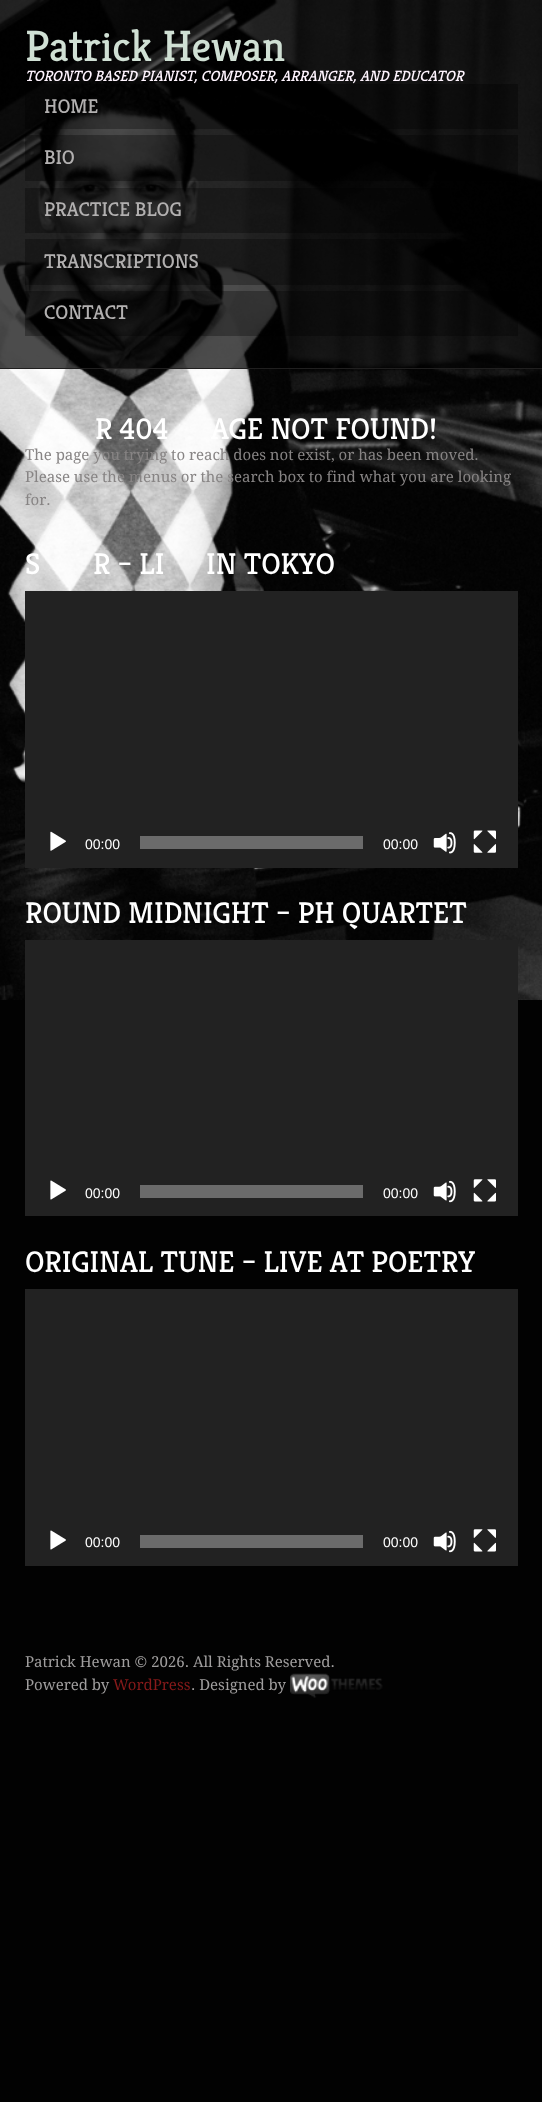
<svg xmlns="http://www.w3.org/2000/svg" width="542" height="2102" viewBox="0 0 542 2102">
  <style>
    .t1 { font: 43.75px Kreon; fill: #d0e0d4; }
    .t2 { font: italic 15px Kreon; fill: #fff5ff; }
    .t3 { font: 20px Kreon; fill: #b2b0b0; }
    .t4 { font: 30px Kreon; fill: #fff; }
    .t5 { font: 15px Droid Serif; fill: #878484; }
    .t6 { font: 14px Liberation Sans; fill: #fff; }
    .t7 { font: 15px Droid Serif; fill: #a09e9e; }
    .t8 { font: 15px Droid Serif; fill: #871a1a; }
  </style>
  <rect width="100%" height="100%" fill="#020202"/>
  <image x="0" y="0" width="542" height="1000" href="images/1.png"/>
  <rect x="0" y="0" width="542" height="368" fill="#000000b3"/>
  <rect x="0" y="368" width="542" height="1" fill="#201f1f"/>
  <text x="25" y="61" class="t1">Patrick Hewan</text>
  <text x="25" y="81" class="t2">TORONTO BASED PIANIST, COMPOSER, ARRANGER, AND EDUCATOR</text>
  <rect x="25" y="84" width="493" height="45" fill="#0000004d"/>
  <text x="44" y="113" class="t3">HOME</text>
  <rect x="25" y="135" width="493" height="46" fill="#0000004d"/>
  <text x="44" y="164" class="t3">BIO</text>
  <rect x="25" y="188" width="425" height="45" fill="#0000004d"/>
  <text x="44" y="216" class="t3">PRACTICE BLOG</text>
  <rect x="25" y="239" width="436" height="46" fill="#0000004d"/>
  <text x="44" y="268" class="t3">TRANSCRIPTIONS</text>
  <rect x="25" y="291" width="493" height="45" fill="#0000004d"/>
  <text x="44" y="319" class="t3">CONTACT</text>
  <text x="95" y="439" class="t4">R 404</text>
  <text x="211" y="439" class="t4">AGE NOT FOUND!</text>
  <text x="25" y="460" class="t5">The page you trying to reach does not exist, or has been moved.</text>
  <text x="25" y="482" class="t5">Please use the menus or the search box to find what you are looking</text>
  <text x="25" y="505" class="t5">for.</text>
  <text x="25" y="574" class="t4">S</text>
  <text x="93" y="574" class="t4">R – LI</text>
  <text x="206" y="574" class="t4">IN TOKYO</text>
  <rect x="25" y="591" width="493" height="277" fill="#222"/>
  <image x="50" y="831" width="16" height="20" href="images/2.png"/>
  <text x="85" y="849" class="t6">00:00</text>
  <rect x="140" y="836" width="223" height="13" fill="#6b6b6b"/>
  <text x="383" y="849" class="t6">00:00</text>
  <image x="433" y="832" width="23" height="22" href="images/3.png"/>
  <image x="473" y="830" width="23" height="23" href="images/4.png"/>
  <text x="25" y="923" class="t4">ROUND MIDNIGHT – PH QUARTET</text>
  <rect x="25" y="940" width="493" height="276" fill="#222"/>
  <image x="50" y="1180" width="16" height="20" href="images/5.png"/>
  <text x="85" y="1198" class="t6">00:00</text>
  <rect x="140" y="1185" width="223" height="13" fill="#6b6b6b"/>
  <text x="383" y="1198" class="t6">00:00</text>
  <image x="433" y="1180" width="23" height="23" href="images/6.png"/>
  <image x="473" y="1179" width="23" height="23" href="images/7.png"/>
  <text x="25" y="1272" class="t4">ORIGINAL TUNE – LIVE AT POETRY</text>
  <rect x="25" y="1289" width="493" height="277" fill="#222"/>
  <image x="50" y="1530" width="16" height="20" href="images/5.png"/>
  <text x="85" y="1547" class="t6">00:00</text>
  <rect x="140" y="1535" width="223" height="13" fill="#6b6b6b"/>
  <text x="383" y="1547" class="t6">00:00</text>
  <image x="433" y="1530" width="23" height="23" href="images/6.png"/>
  <image x="473" y="1529" width="23" height="23" href="images/7.png"/>
  <text x="25" y="1667" class="t7">Patrick Hewan © 2026. All Rights Reserved.</text>
  <text x="25" y="1690" class="t7">Powered by</text>
  <text x="113" y="1690" class="t8">WordPress</text>
  <text x="191" y="1690" class="t7">. Designed by</text>
  <image x="290" y="1673" width="93" height="25" href="images/8.png"/>
</svg>
